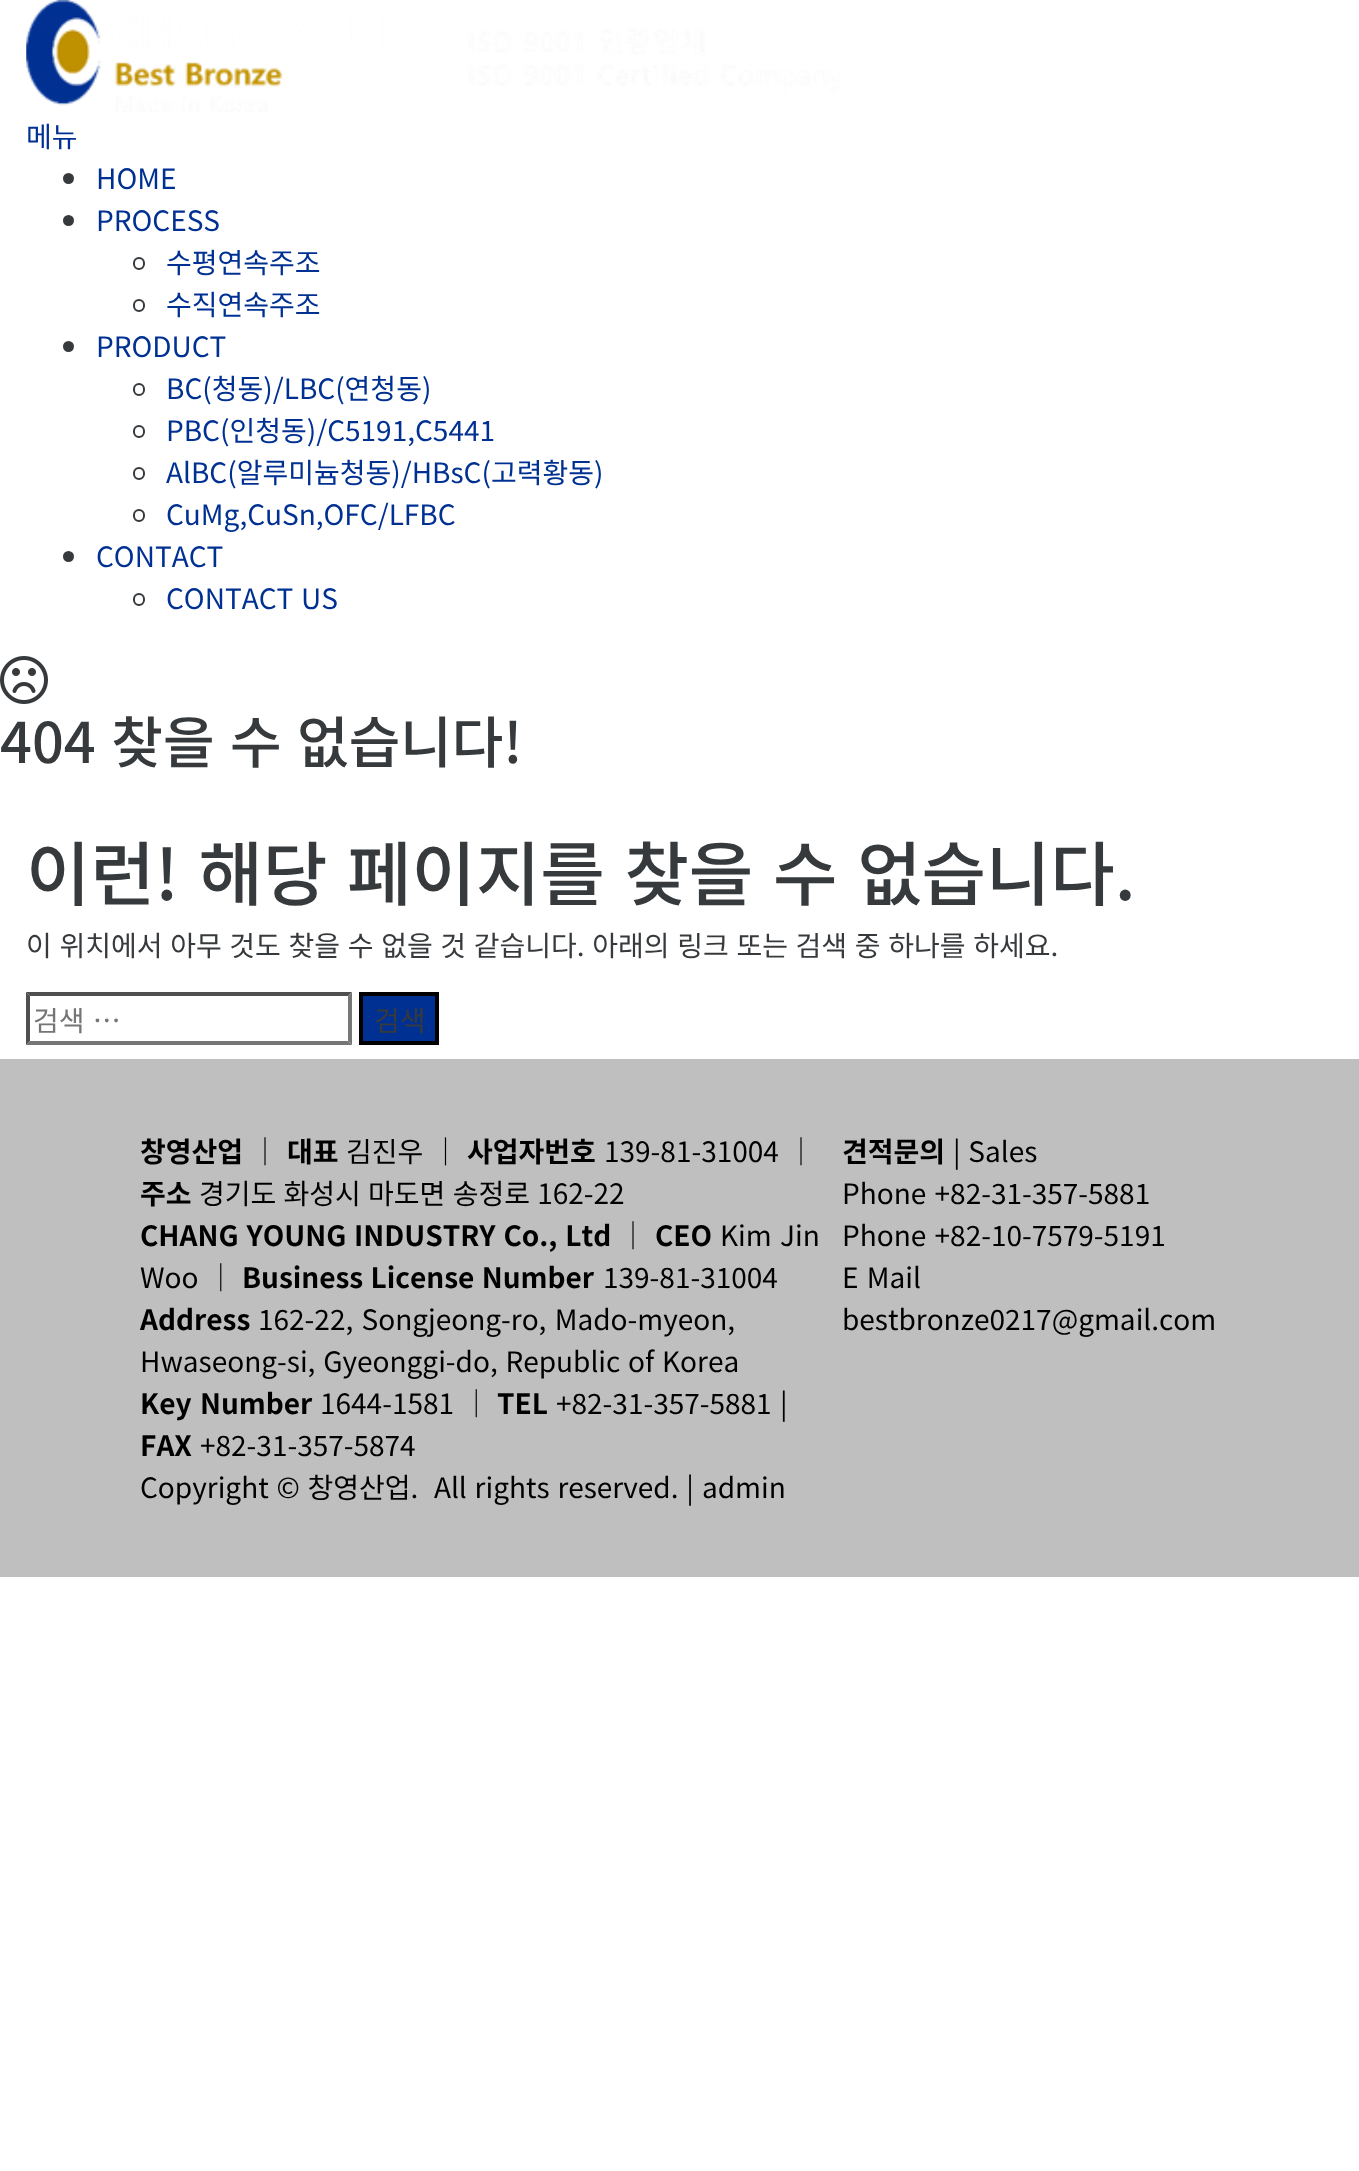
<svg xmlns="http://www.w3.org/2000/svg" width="1359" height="2171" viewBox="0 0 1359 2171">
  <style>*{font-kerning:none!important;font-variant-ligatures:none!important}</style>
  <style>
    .t1 { font: 28px Noto Sans KR; fill: #003192; }
    .t2 { font: 500 56px Noto Sans KR; fill: #373a3c; }
    .t3 { font: 500 70px Noto Sans KR; fill: #373a3c; }
    .t4 { font: 28px Noto Sans KR; fill: #373a3c; }
    .t5 { font: 28px Noto Sans KR; fill: #757575; }
    .t6 { font: bold 28px Noto Sans KR; fill: #000; }
    .t7 { font: 28px Noto Sans KR; fill: #000; }
  </style>
  <rect width="100%" height="100%" fill="#fff"/>
  <image x="26" y="0" width="814" height="112" href="images/1.png"/>
  <text x="26" y="147" class="t1">메뉴</text>
  <circle cx="68.5" cy="178.5" r="5.5" fill="#373a3c"/>
  <text x="96" y="189" class="t1">HOME</text>
  <circle cx="68.5" cy="220.5" r="5.5" fill="#373a3c"/>
  <text x="96" y="231" class="t1">PROCESS</text>
  <rect x="134" y="258" width="10" height="11" rx="5" fill="none" stroke="#373a3c" stroke-width="2"/>
  <text x="166" y="273" class="t1">수평연속주조</text>
  <rect x="134" y="300" width="10" height="11" rx="5" fill="none" stroke="#373a3c" stroke-width="2"/>
  <text x="166" y="315" class="t1">수직연속주조</text>
  <circle cx="68.5" cy="346.5" r="5.5" fill="#373a3c"/>
  <text x="96" y="357" class="t1">PRODUCT</text>
  <rect x="134" y="384" width="10" height="11" rx="5" fill="none" stroke="#373a3c" stroke-width="2"/>
  <text x="166" y="399" class="t1">BC(청동)/LBC(연청동)</text>
  <rect x="134" y="426" width="10" height="11" rx="5" fill="none" stroke="#373a3c" stroke-width="2"/>
  <text x="166" y="441" class="t1">PBC(인청동)/C5191,C5441</text>
  <rect x="134" y="468" width="10" height="11" rx="5" fill="none" stroke="#373a3c" stroke-width="2"/>
  <text x="166" y="483" class="t1">AlBC(알루미늄청동)/HBsC(고력황동)</text>
  <rect x="134" y="510" width="10" height="11" rx="5" fill="none" stroke="#373a3c" stroke-width="2"/>
  <text x="166" y="525" class="t1">CuMg,CuSn,OFC/LFBC</text>
  <circle cx="68.5" cy="556.5" r="5.5" fill="#373a3c"/>
  <text x="96" y="567" class="t1">CONTACT</text>
  <rect x="134" y="594" width="10" height="11" rx="5" fill="none" stroke="#373a3c" stroke-width="2"/>
  <text x="166" y="609" word-spacing="1.5" class="t1">CONTACT US</text>
  <image x="0" y="656" width="48" height="48" href="images/2.png"/>
  <text x="0" y="763" word-spacing="3" class="t2">404 찾을 수 없습니다!</text>
  <text x="26" y="900" word-spacing="4" class="t3">이런! 해당 페이지를 찾을 수 없습니다.</text>
  <text x="26" y="956" word-spacing="1.4" class="t4">이 위치에서 아무 것도 찾을 수 없을 것 같습니다. 아래의 링크 또는 검색 중 하나를 하세요.</text>
  <path d="M26 992H352L348 996H30Z" fill="#4f4f4f"/>
  <path d="M352 992V1045L348 1041V996Z" fill="#767676"/>
  <path d="M352 1045H26L30 1041H348Z" fill="#767676"/>
  <path d="M26 1045V992L30 996V1041Z" fill="#4f4f4f"/>
  <text x="33" y="1031" word-spacing="2" class="t5">검색 …</text>
  <rect x="361" y="994" width="76" height="49" fill="#003192" stroke="#000" stroke-width="4"/>
  <text x="374" y="1031" class="t4">검색</text>
  <rect x="0" y="1059" width="1359" height="518" fill="#bfbfbf"/>
  <text x="140" y="1162" class="t6">창영산업</text>
  <text x="251" y="1162" class="t7">｜</text>
  <text x="287" y="1162" class="t6">대표</text>
  <text x="346" y="1162" word-spacing="2" class="t7">김진우 ｜</text>
  <text x="467" y="1162" class="t6">사업자번호</text>
  <text x="604" y="1162" word-spacing="2" class="t7">139-81-31004 ｜</text>
  <text x="140" y="1204" class="t6">주소</text>
  <text x="199" y="1204" word-spacing="1" class="t7">경기도 화성시 마도면 송정로 162-22</text>
  <text x="140" y="1246" word-spacing="1.5" class="t6">CHANG YOUNG INDUSTRY Co., Ltd</text>
  <text x="619" y="1246" class="t7">｜</text>
  <text x="655" y="1246" class="t6">CEO</text>
  <text x="720" y="1246" word-spacing="2" class="t7">Kim Jin</text>
  <text x="140" y="1288" word-spacing="2" class="t7">Woo ｜</text>
  <text x="242" y="1288" word-spacing="1" class="t6">Business License Number</text>
  <text x="603" y="1288" class="t7">139-81-31004</text>
  <text x="140" y="1330" class="t6">Address</text>
  <text x="258" y="1330" word-spacing="2" class="t7">162-22, Songjeong-ro, Mado-myeon,</text>
  <text x="140" y="1372" word-spacing="1.5" class="t7">Hwaseong-si, Gyeonggi-do, Republic of Korea</text>
  <text x="140" y="1414" word-spacing="2" class="t6">Key Number</text>
  <text x="320" y="1414" word-spacing="2" class="t7">1644-1581 ｜</text>
  <text x="497" y="1414" class="t6">TEL</text>
  <text x="556" y="1414" word-spacing="2" class="t7">+82-31-357-5881 |</text>
  <text x="140" y="1456" class="t6">FAX</text>
  <text x="200" y="1456" class="t7">+82-31-357-5874</text>
  <text x="140" y="1498" word-spacing="1.5" class="t7" xml:space="preserve">Copyright © 창영산업.  All rights reserved. |</text>
  <text x="702" y="1498" class="t7">admin</text>
  <text x="842" y="1162" class="t6">견적문의</text>
  <text x="953" y="1162" word-spacing="1.5" class="t7">| Sales</text>
  <text x="842" y="1204" word-spacing="2" class="t7">Phone +82-31-357-5881</text>
  <text x="842" y="1246" word-spacing="2" class="t7">Phone +82-10-7579-5191</text>
  <text x="842" y="1288" word-spacing="2" class="t7">E Mail</text>
  <text x="842" y="1330" class="t7">bestbronze0217@gmail.com</text>
</svg>
